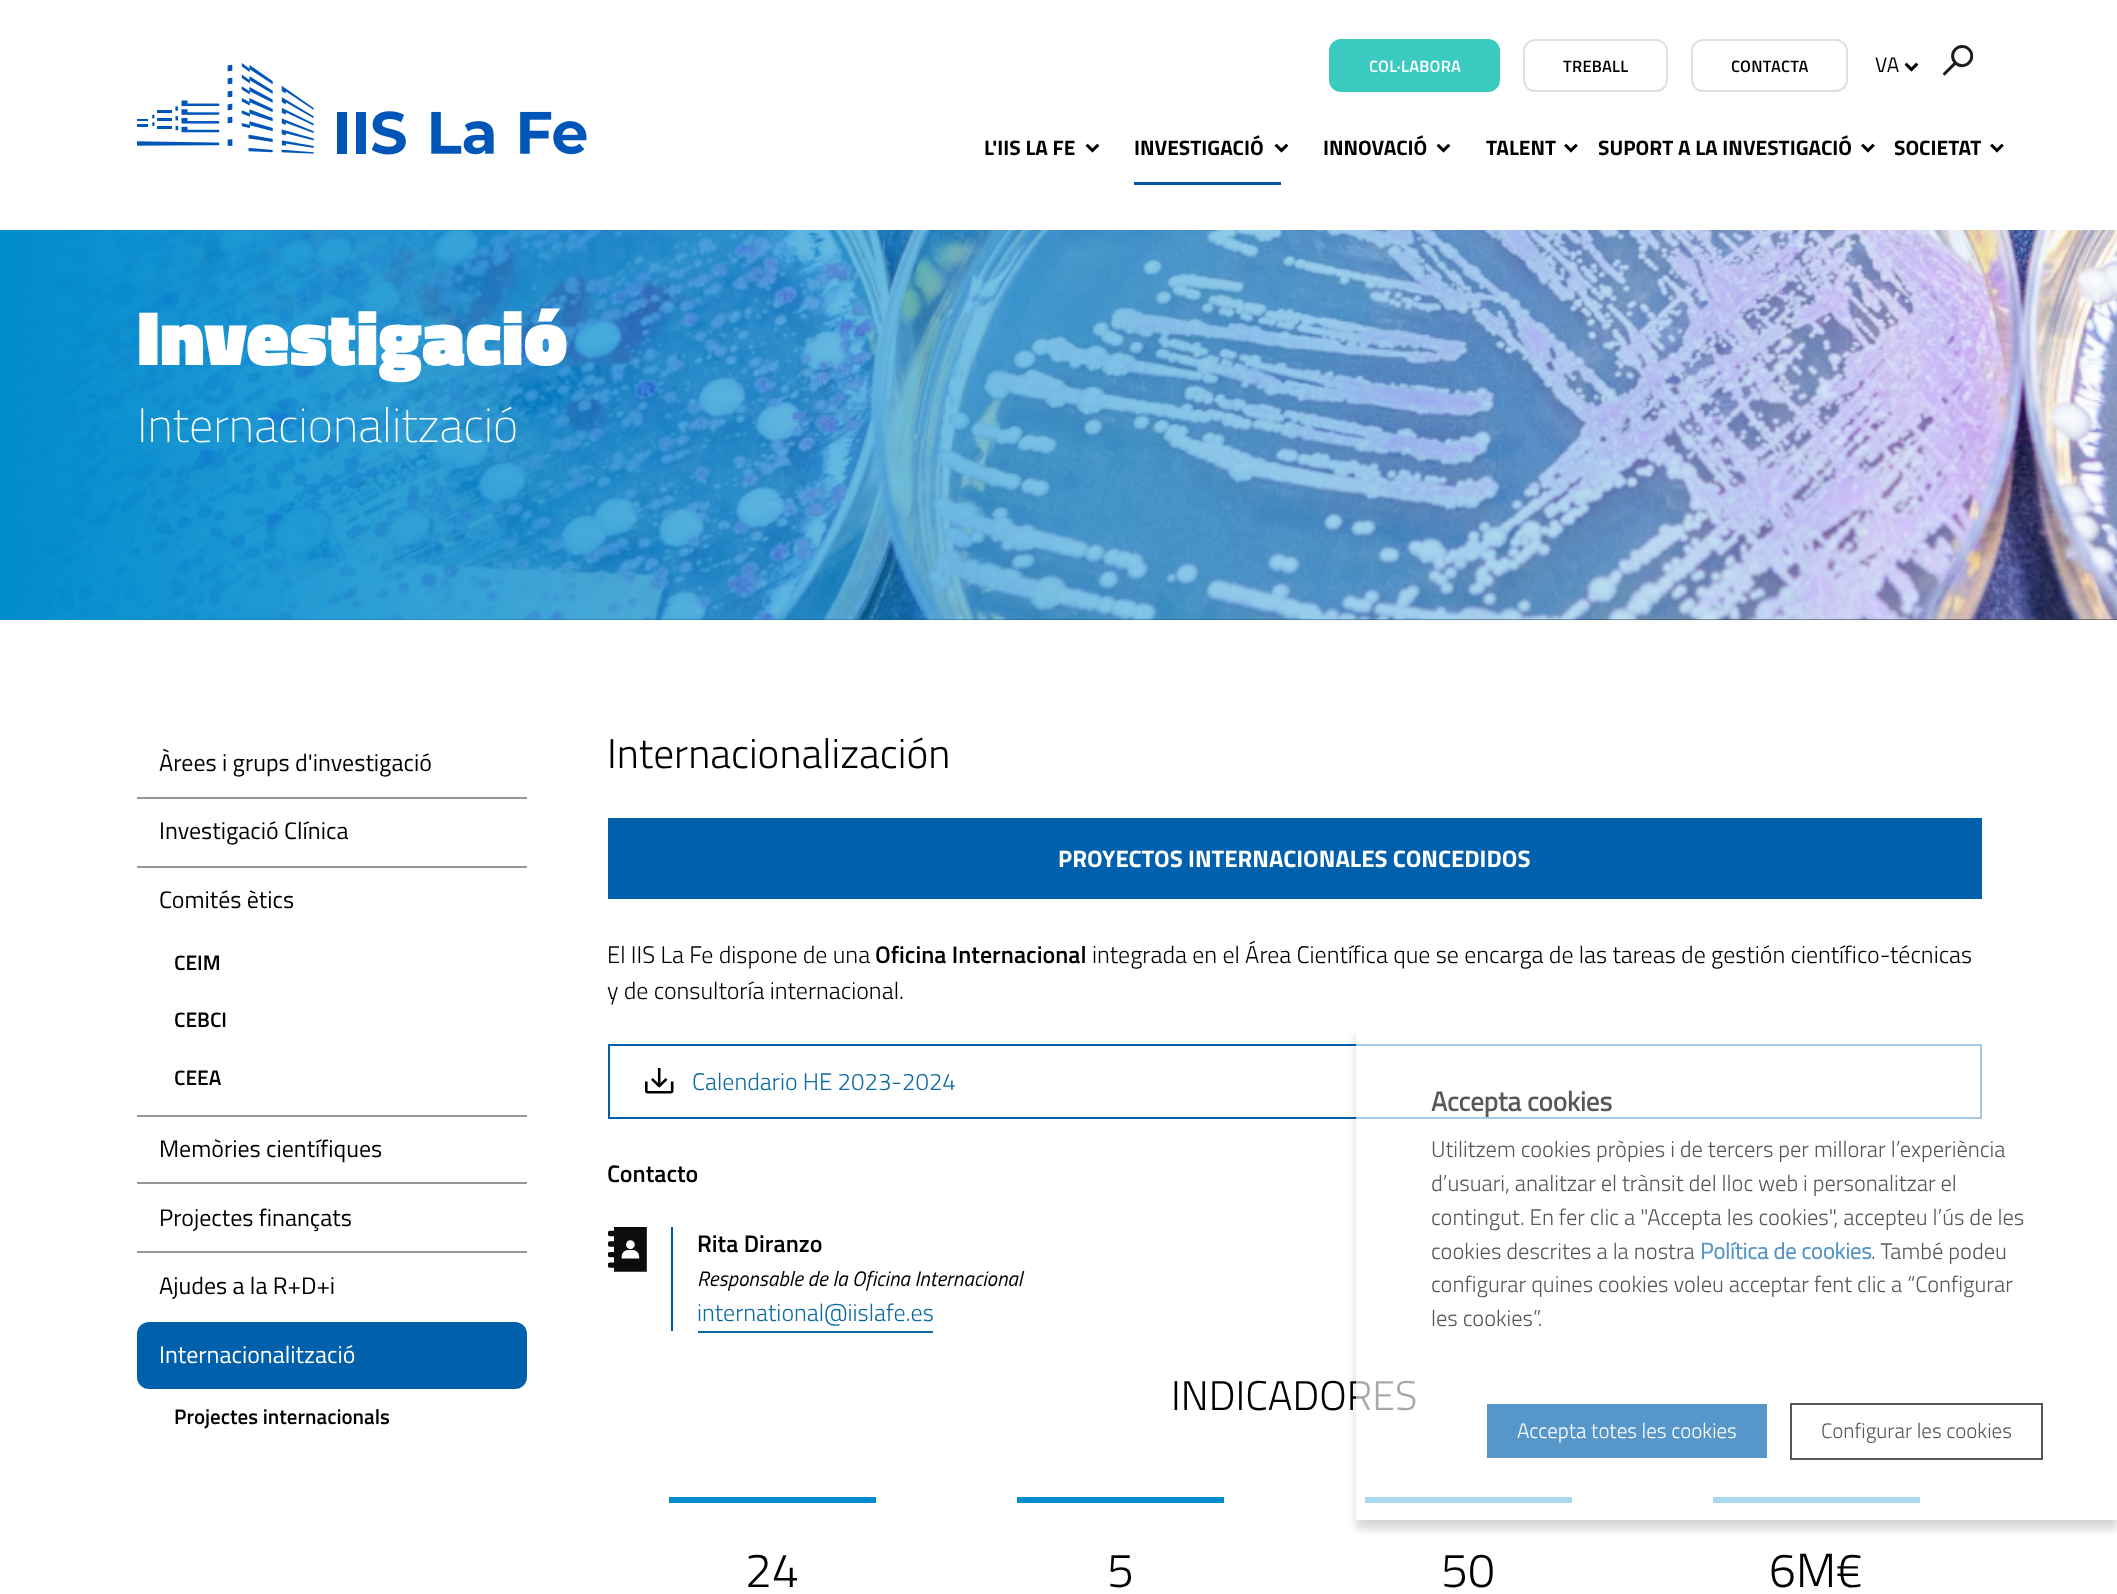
<svg xmlns="http://www.w3.org/2000/svg" width="2117" height="1594" viewBox="0 0 2117 1594">
  <style>
    .t1 { font: 600 16.5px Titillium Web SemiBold; letter-spacing: 0.25px; fill: #fff; }
    .t2 { font: 600 16.5px Titillium Web SemiBold; letter-spacing: 0.25px; fill: #000; }
    .t3 { font: 21px Titillium Web; fill: #000; }
    .t4 { font: bold 21px Titillium Web; fill: #000; }
    .t5 { font: 900 78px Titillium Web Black; fill: #fff; }
    .t6 { font: 200 48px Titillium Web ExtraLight; fill: #fff; }
    .t7 { font: 24px Titillium Web; fill: #000; }
    .t8 { font: 600 21px Titillium Web SemiBold; fill: #000; }
    .t9 { font: 24px Titillium Web; fill: #fff; }
    .t10 { font: 300 41.5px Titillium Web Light; fill: #000; }
    .t11 { font: bold 24px Titillium Web; fill: #fff; }
    .t12 { font: 300 24px Titillium Web Light; fill: #000; }
    .t13 { font: 600 24px Titillium Web SemiBold; fill: #000; }
    .t14 { font: 300 24px Titillium Web Light; fill: #0d6ba0; }
    .t15 { font: italic 21px Titillium Web; fill: #000; }
    .t16 { font: 300 48px Titillium Web Light; fill: #000; }
    .t17 { font: bold 27px 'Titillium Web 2'; fill: #575757; }
    .t18 { font: 300 22.5px Titillium Web Light; fill: #575757; }
    .t19 { font: bold 22.5px Titillium Web Light; fill: #5796c8; }
    .t20 { font: 300 21px Titillium Web Light; fill: #fff; }
    .t21 { font: 300 21px Titillium Web Light; fill: #575757; }
  </style>
  <defs>
    <linearGradient id="g1" gradientUnits="userSpaceOnUse" x1="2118" y1="425" x2="0" y2="424"><stop offset="0" stop-color="#008cce" stop-opacity="0"/><stop offset="1" stop-color="#008cce"/></linearGradient>
    <clipPath id="clip1"><path d="M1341 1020H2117V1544H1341ZM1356 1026H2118V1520H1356Z" clip-rule="evenodd"/></clipPath>
  </defs>
  <rect width="100%" height="100%" fill="#fff"/>
  <image x="137" y="63" width="450" height="92" href="images/1.png"/>
  <rect x="1330" y="40" width="169" height="51" rx="11" fill="#3acac0" stroke="#3acac0" stroke-width="2"/>
  <text x="1369" y="72" class="t1">COL·LABORA</text>
  <rect x="1524" y="40" width="143" height="51" rx="11" fill="none" stroke="#dfdfdf" stroke-width="2"/>
  <text x="1563" y="72" class="t2">TREBALL</text>
  <rect x="1692" y="40" width="155" height="51" rx="11" fill="none" stroke="#dfdfdf" stroke-width="2"/>
  <text x="1731" y="72" class="t2">CONTACTA</text>
  <text x="1875" y="72" class="t3">VA</text>
  <image x="1904" y="62" width="15" height="10" href="images/2.png"/>
  <image x="1943" y="45" width="31" height="31" href="images/3.png"/>
  <text x="984" y="155" class="t4">L'IIS LA FE</text>
  <image x="1085" y="143" width="15" height="10" href="images/2.png"/>
  <text x="1134" y="155" class="t4">INVESTIGACIÓ</text>
  <image x="1274" y="143" width="15" height="10" href="images/2.png"/>
  <rect x="1134" y="182" width="147" height="3" fill="#0056a4"/>
  <text x="1323" y="155" class="t4">INNOVACIÓ</text>
  <image x="1436" y="143" width="15" height="10" href="images/2.png"/>
  <text x="1486" y="155" class="t4">TALENT</text>
  <image x="1564" y="143" width="14" height="10" href="images/4.png"/>
  <text x="1598" y="155" class="t4">SUPORT A LA INVESTIGACIÓ</text>
  <image x="1861" y="143" width="14" height="10" href="images/4.png"/>
  <text x="1894" y="155" class="t4">SOCIETAT</text>
  <image x="1990" y="143" width="14" height="10" href="images/4.png"/>
  <rect x="12" y="619" width="2105" height="1" fill="#333"/>
  <image x="12" y="230" width="2105" height="390" href="images/5.png"/>
  <rect x="0" y="230" width="2072" height="390" fill="url(#g1)"/>
  <text x="137" y="365" class="t5">Investigació</text>
  <text x="137" y="442" class="t6">Internacionalització</text>
  <text x="159" y="771" class="t7">Àrees i grups d'investigació</text>
  <rect x="137" y="797" width="390" height="2" fill="#979797"/>
  <text x="159" y="839" class="t7">Investigació Clínica</text>
  <rect x="137" y="866" width="390" height="2" fill="#979797"/>
  <text x="159" y="908" class="t7">Comités ètics</text>
  <text x="174" y="970" class="t8">CEIM</text>
  <text x="174" y="1027" class="t8">CEBCI</text>
  <text x="174" y="1085" class="t8">CEEA</text>
  <rect x="137" y="1115" width="390" height="2" fill="#979797"/>
  <text x="159" y="1157" class="t7">Memòries científiques</text>
  <rect x="137" y="1182" width="390" height="2" fill="#979797"/>
  <text x="159" y="1226" class="t7">Projectes finançats</text>
  <rect x="137" y="1251" width="390" height="2" fill="#979797"/>
  <text x="159" y="1294" class="t7">Ajudes a la R+D+i</text>
  <rect x="137" y="1322" width="390" height="67" rx="12" fill="#0060ac"/>
  <text x="159" y="1363" class="t9">Internacionalització</text>
  <text x="174" y="1424" class="t8">Projectes internacionals</text>
  <text x="607" y="768" class="t10">Internacionalización</text>
  <rect x="608" y="818" width="1374" height="81" fill="#0060ac"/>
  <text x="1058" y="867" class="t11">PROYECTOS INTERNACIONALES CONCEDIDOS</text>
  <text x="607" y="963" class="t12">El IIS La Fe dispone de una</text>
  <text x="875" y="963" class="t13">Oficina Internacional</text>
  <text x="1092" y="963" class="t12">integrada en el Área Científica que se encarga de las tareas de gestión científico-técnicas</text>
  <text x="607" y="999" class="t12">y de consultoría internacional.</text>
  <rect x="609" y="1045" width="1372" height="73" fill="none" stroke="#0060ac" stroke-width="2"/>
  <image x="645" y="1068" width="29" height="26" href="images/6.png"/>
  <text x="692" y="1090" class="t14">Calendario HE 2023-2024</text>
  <text x="607" y="1182" class="t13">Contacto</text>
  <image x="608" y="1227" width="39" height="45" href="images/7.png"/>
  <rect x="671" y="1227" width="2" height="104" fill="#0060ac"/>
  <text x="697" y="1252" class="t13">Rita Diranzo</text>
  <text x="697" y="1286" class="t15">Responsable de la Oficina Internacional</text>
  <text x="697" y="1321" class="t14">international@iislafe.es</text>
  <rect x="698" y="1331" width="235" height="2" fill="#0d6ba0"/>
  <text x="1171" y="1410" class="t10">INDICADORES</text>
  <rect x="669" y="1497" width="207" height="6" fill="#008cce"/>
  <text x="745" y="1587" class="t16">24</text>
  <rect x="1017" y="1497" width="207" height="6" fill="#008cce"/>
  <text x="1107" y="1587" class="t16">5</text>
  <rect x="1365" y="1497" width="207" height="6" fill="#008cce"/>
  <text x="1441" y="1587" class="t16">50</text>
  <rect x="1713" y="1497" width="207" height="6" fill="#008cce"/>
  <text x="1769" y="1587" class="t16">6M€</text>
  <g clip-path="url(#clip1)">
    <rect x="1356" y="1035" width="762" height="494" fill="#00000029" filter="blur(4.5px)"/>
  </g>
  <rect x="1356" y="1044" width="761" height="476" fill="#ffffffa8"/>
  <text x="1431" y="1111" class="t17">Accepta cookies</text>
  <text x="1431" y="1157" class="t18">Utilitzem cookies pròpies i de tercers per millorar l’experiència</text>
  <text x="1431" y="1191" class="t18">d’usuari, analitzar el trànsit del lloc web i personalitzar el</text>
  <text x="1431" y="1225" class="t18">contingut. En fer clic a "Accepta les cookies", accepteu l’ús de les</text>
  <text x="1431" y="1259" class="t18">cookies descrites a la nostra</text>
  <text x="1700" y="1259" class="t19">Política de cookies</text>
  <text x="1871" y="1259" class="t18">. També podeu</text>
  <text x="1431" y="1292" class="t18">configurar quines cookies voleu acceptar fent clic a “Configurar</text>
  <text x="1431" y="1326" class="t18">les cookies”.</text>
  <rect x="1487" y="1404" width="280" height="54" fill="#5796c8"/>
  <text x="1517" y="1438" class="t20">Accepta totes les cookies</text>
  <rect x="1791" y="1404" width="251" height="55" fill="none" stroke="#575757" stroke-width="2"/>
  <text x="1821" y="1438" class="t21">Configurar les cookies</text>
</svg>
